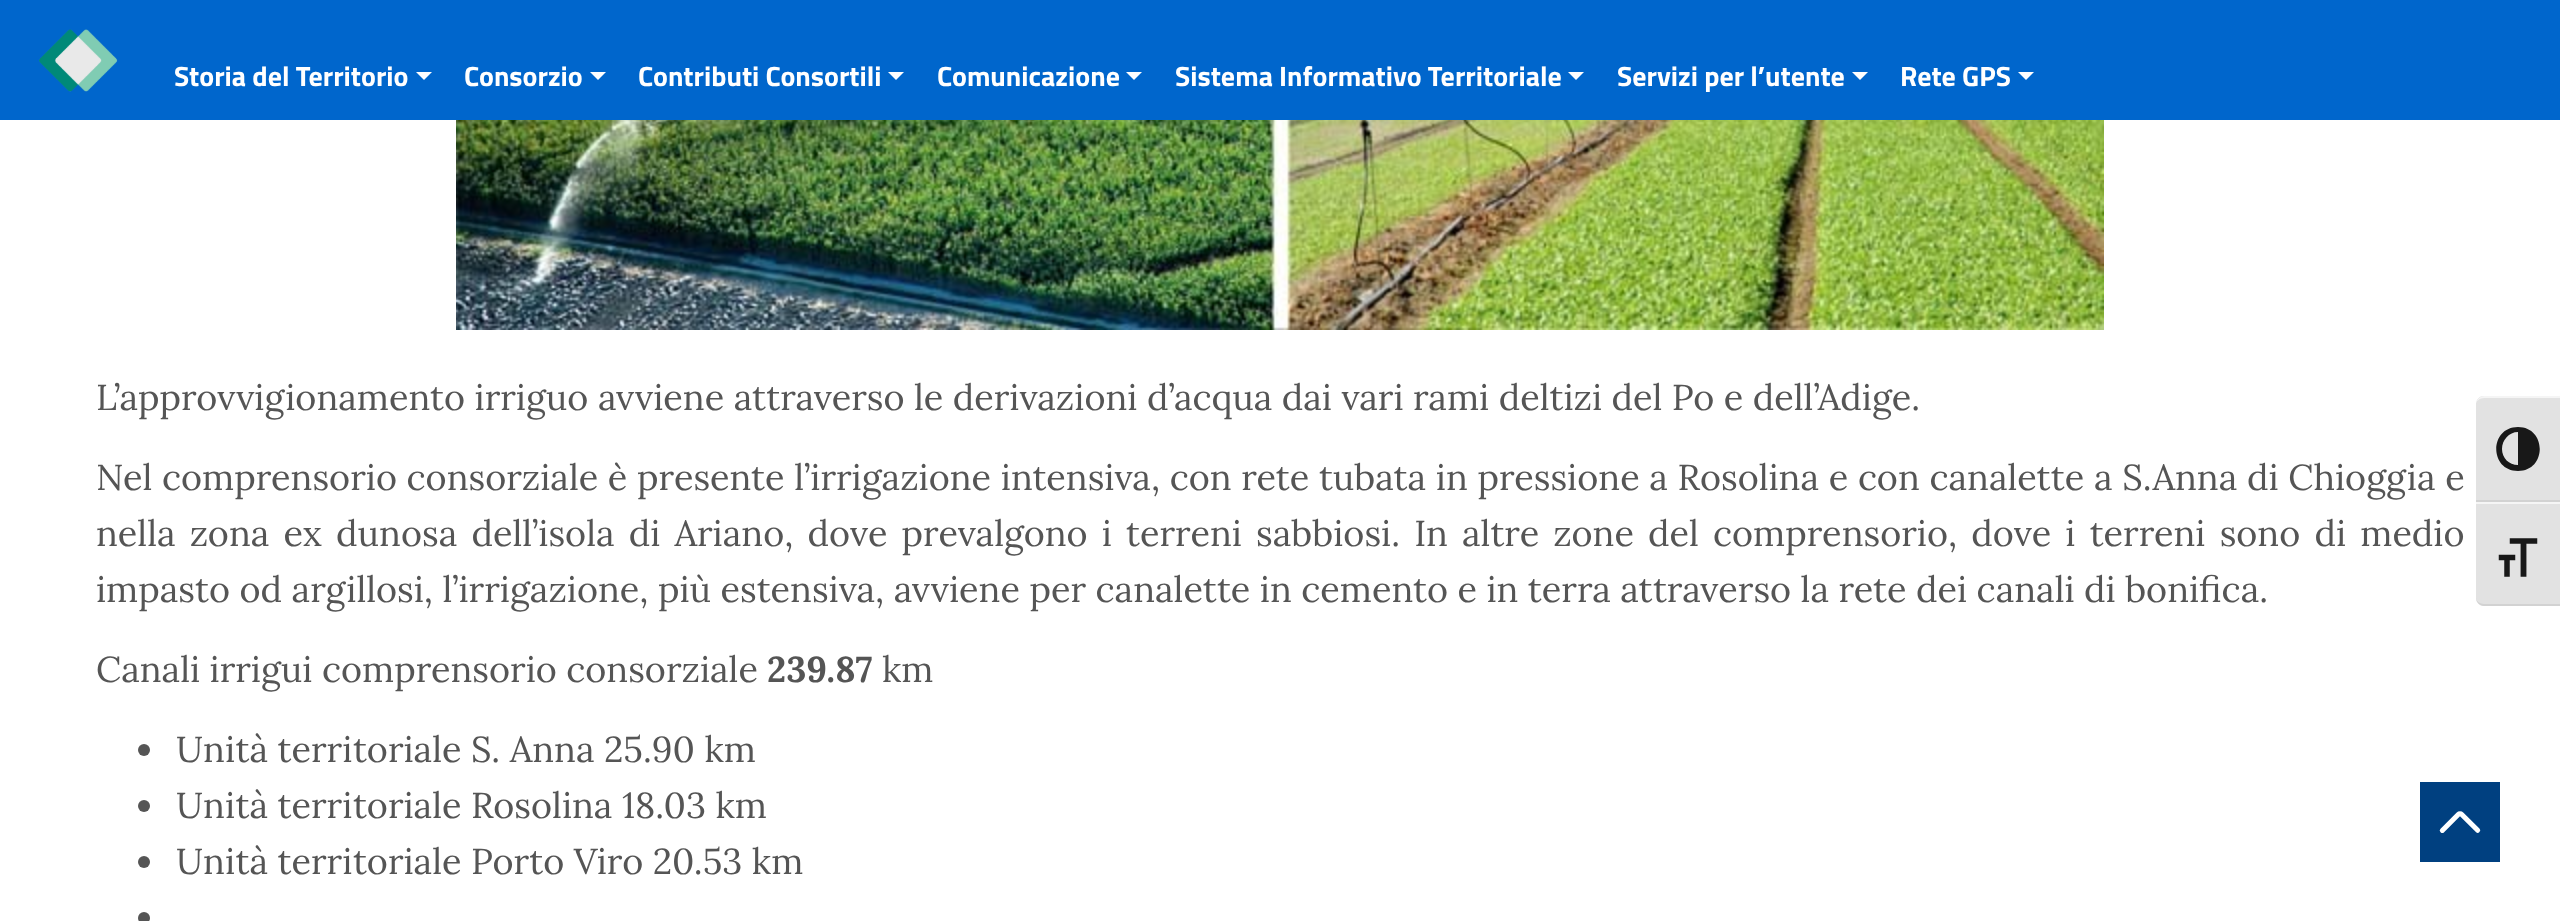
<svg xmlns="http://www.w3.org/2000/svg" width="2560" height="921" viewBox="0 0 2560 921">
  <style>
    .t1 { font: bold 28px Titillium Web; fill: #fff; }
    .t2 { font: 36px Lora; fill: #555; }
    .t3 { font: bold 36px Lora; fill: #555; }
  </style>
  <rect width="100%" height="100%" fill="#fff"/>
  <rect x="0" y="0" width="2560" height="120" fill="#06c"/>
  <image x="39" y="29" width="79" height="63" href="images/1.png"/>
  <text x="174" y="86" class="t1">Storia del Territorio</text>
  <path d="M416 72H432L424 80Z" fill="#fff"/>
  <text x="464" y="86" class="t1">Consorzio</text>
  <path d="M590 72H606L598 80Z" fill="#fff"/>
  <text x="638" y="86" class="t1">Contributi Consortili</text>
  <path d="M888 72H904L896 80Z" fill="#fff"/>
  <text x="937" y="86" class="t1">Comunicazione</text>
  <path d="M1126 72H1142L1134 80Z" fill="#fff"/>
  <text x="1175" y="86" class="t1">Sistema Informativo Territoriale</text>
  <path d="M1568 72H1584L1576 80Z" fill="#fff"/>
  <text x="1617" y="86" class="t1">Servizi per l’utente</text>
  <path d="M1852 72H1868L1860 80Z" fill="#fff"/>
  <text x="1900" y="86" class="t1">Rete GPS</text>
  <path d="M2018 72H2034L2026 80Z" fill="#fff"/>
  <image x="456" y="120" width="1648" height="210" href="images/2.png"/>
  <text x="96" y="410" class="t2">L’approvvigionamento irriguo avviene attraverso le derivazioni d’acqua dai vari rami deltizi del Po e dell’Adige.</text>
  <text x="96" y="490" word-spacing="0.2" class="t2">Nel comprensorio consorziale è presente l’irrigazione intensiva, con rete tubata in pressione a Rosolina e con canalette a S.Anna di Chioggia e</text>
  <text x="96" y="546" word-spacing="4.7" class="t2">nella zona ex dunosa dell’isola di Ariano, dove prevalgono i terreni sabbiosi. In altre zone del comprensorio, dove i terreni sono di medio</text>
  <text x="96" y="602" class="t2">impasto od argillosi, l’irrigazione, più estensiva, avviene per canalette in cemento e in terra attraverso la rete dei canali di bonifica.</text>
  <text x="96" y="682" class="t2">Canali irrigui comprensorio consorziale</text>
  <text x="767" y="682" class="t3">239.87</text>
  <text x="882" y="682" class="t2">km</text>
  <circle cx="144" cy="750" r="6" fill="#555"/>
  <text x="176" y="762" class="t2">Unità territoriale S. Anna 25.90 km</text>
  <circle cx="144" cy="806" r="6" fill="#555"/>
  <text x="176" y="818" class="t2">Unità territoriale Rosolina 18.03 km</text>
  <circle cx="144" cy="862" r="6" fill="#555"/>
  <text x="176" y="874" class="t2">Unità territoriale Porto Viro 20.53 km</text>
  <circle cx="144" cy="918" r="6" fill="#555"/>
  <path d="M2484 396H2560V502H2476V404C2476 399.5 2479.5 396 2484 396Z" fill="#e2e2e2"/>
  <path d="M2484 398H2560V396H2484C2480 396 2476 400 2476 404C2476 401 2480 398 2484 398Z" fill="#f5f5f5"/>
  <rect x="2476" y="500" width="84" height="2" fill="#d2d2d2"/>
  <path d="M2518 427C2489 427 2489 471 2518 471C2547 471 2547 427 2518 427ZM2502 449C2502 440 2509 432 2518 432V465C2509 465 2502 458 2502 449Z" fill="#181818"/>
  <path d="M2476 502H2560V606H2484C2479.5 606 2476 602.5 2476 598Z" fill="#e2e2e2"/>
  <rect x="2476" y="502" width="84" height="2" fill="#f5f5f5"/>
  <path d="M2560 606V604H2484C2480 604 2476 601 2476 598C2476 602 2480 606 2484 606Z" fill="#d2d2d2"/>
  <image x="2498" y="538" width="40" height="39" href="images/3.png"/>
  <rect x="2420" y="782" width="80" height="80" fill="#004080"/>
  <image x="2439" y="811" width="42" height="22" href="images/4.png"/>
</svg>
